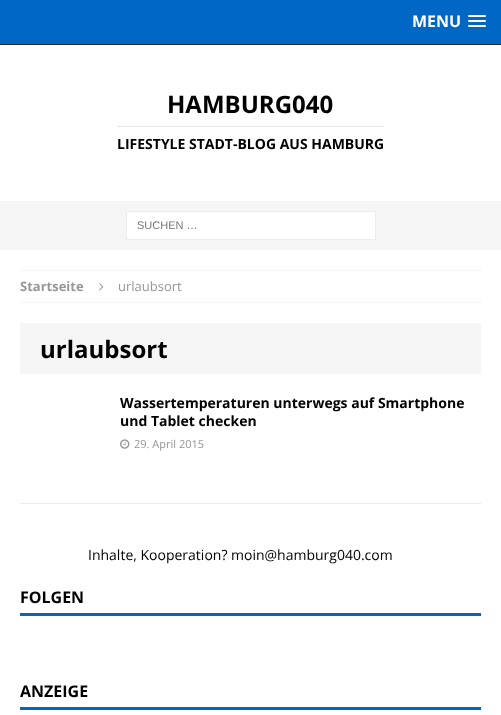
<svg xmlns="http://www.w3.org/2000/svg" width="501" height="715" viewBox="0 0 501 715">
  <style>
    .t1 { font: bold 16px Open Sans; fill: #fff; }
    .t2 { font: bold 24px Open Sans; fill: #000; }
    .t3 { font: bold 14px Open Sans; fill: #000; }
    .t4 { font: 11px Liberation Sans; fill: #757575; }
    .t5 { font: bold 13px Open Sans; fill: #979797; }
    .t6 { font: 13px Open Sans; fill: #979797; }
    .t7 { font: 11px Open Sans; fill: #979797; }
    .t8 { font: 14px Open Sans; fill: #000; }
    .t9 { font: bold 16px Open Sans; fill: #000; }
  </style>
  <rect width="100%" height="100%" fill="#0068c4"/>
  <rect x="0" y="44" width="501" height="1" fill="#2a2a2a"/>
  <text x="412" y="27" class="t1">MENU</text>
  <rect x="468" y="15" width="18" height="2" rx="1" fill="#fff"/>
  <rect x="468" y="20" width="18" height="2" rx="1" fill="#fff"/>
  <rect x="468" y="25" width="18" height="2" rx="1" fill="#fff"/>
  <rect x="0" y="45" width="501" height="156" fill="#fff"/>
  <text x="167" y="113" class="t2">HAMBURG040</text>
  <rect x="117" y="126" width="267" height="1" fill="#e5e5e5"/>
  <text x="117" y="149" class="t3">LIFESTYLE STADT-BLOG AUS HAMBURG</text>
  <rect x="0" y="201" width="501" height="49" fill="#f5f5f5"/>
  <rect x="126.5" y="211.5" width="249" height="28" fill="#fff" stroke="#ebebeb"/>
  <text x="137" y="229" class="t4">SUCHEN …</text>
  <rect x="0" y="250" width="501" height="465" fill="#fff"/>
  <path d="M20 270.5H481" fill="none" stroke="#ebebeb" stroke-dasharray="1 1"/>
  <path d="M20 302.5H481" fill="none" stroke="#ebebeb" stroke-dasharray="1 1"/>
  <text x="20" y="291" class="t5">Startseite</text>
  <image x="99" y="283" width="5" height="8" href="images/1.png"/>
  <text x="118" y="291" class="t6">urlaubsort</text>
  <rect x="20" y="323" width="461" height="51" fill="#f5f5f5"/>
  <text x="40" y="358" class="t2">urlaubsort</text>
  <rect x="20" y="503" width="461" height="1" fill="#ebebeb"/>
  <text x="120" y="408" class="t3">Wassertemperaturen unterwegs auf Smartphone</text>
  <text x="120" y="426" class="t3">und Tablet checken</text>
  <image x="120" y="439" width="10" height="10" href="images/2.png"/>
  <text x="134" y="448" class="t7">29. April 2015</text>
  <text x="88" y="560" class="t8">Inhalte, Kooperation? moin@hamburg040.com</text>
  <rect x="20" y="613" width="461" height="3" fill="#0068c4"/>
  <text x="20" y="603" class="t9">FOLGEN</text>
  <rect x="20" y="707" width="461" height="3" fill="#0068c4"/>
  <text x="20" y="697" class="t9">ANZEIGE</text>
</svg>
